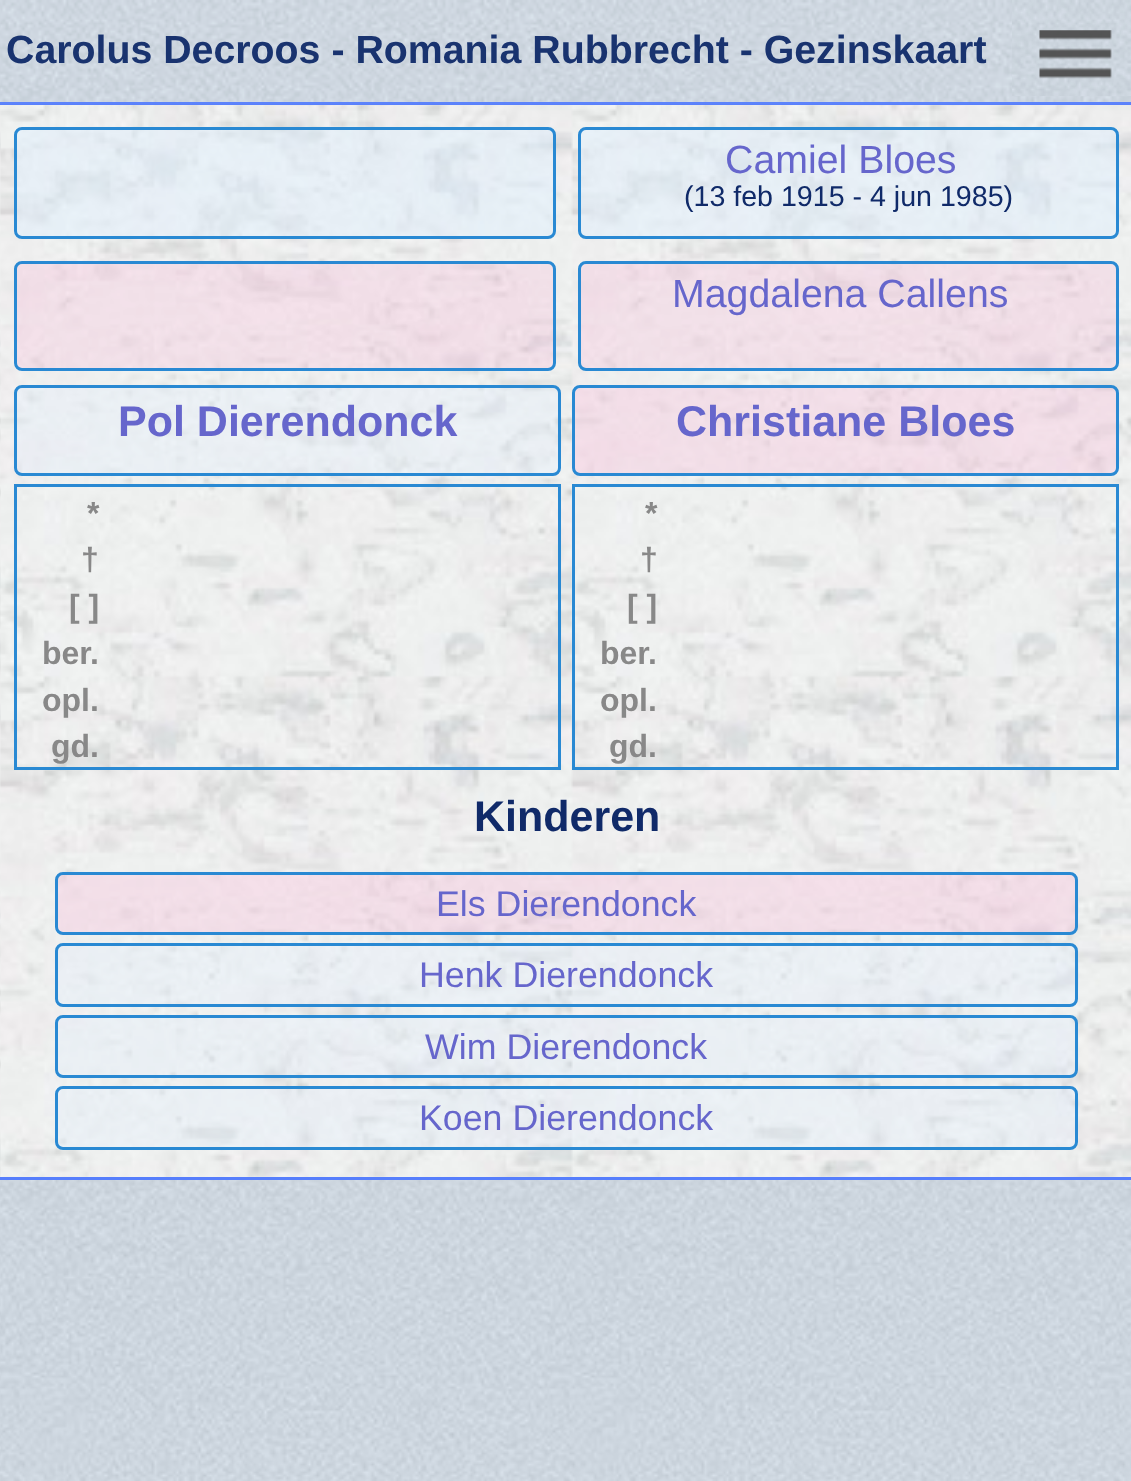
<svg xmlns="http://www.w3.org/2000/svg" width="1131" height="1481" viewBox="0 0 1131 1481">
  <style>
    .t1 { font: bold 39.3px Liberation Sans; fill: #19336f; }
    .t2 { font: 39.3px Liberation Sans; fill: #66c; }
    .t3 { font: 28.6px Liberation Sans; fill: #102a69; }
    .t4 { font: bold 43px Liberation Sans; fill: #66c; }
    .t5 { font: bold 32px Liberation Sans; fill: #888; }
    .t6 { font: bold 43px Liberation Sans; fill: #102a69; }
    .t7 { font: 35.75px Liberation Sans; fill: #66c; }
  </style>
  <rect width="100%" height="100%" fill="#fff"/>
  <image x="0" y="0" width="1131" height="1481" href="images/1.png"/>
  <image x="0" y="101" width="1131" height="1076" href="images/5.png"/>
  <rect x="0" y="102" width="1131" height="3" fill="#567efc"/>
  <image x="0" y="0" width="1131" height="105" href="images/2.png"/>
  <rect x="0" y="102" width="1131" height="3" fill="#567efcf2"/>
  <text x="6" y="63" class="t1">Carolus Decroos - Romania Rubbrecht - Gezinskaart</text>
  <image x="1012" y="0" width="119" height="96" href="images/3.png"/>
  <image x="1039" y="30" width="73" height="49" href="images/4.png"/>
  <rect x="0" y="1177" width="1131" height="3" fill="#567efc"/>
  <rect x="15.5" y="128.5" width="539" height="109" rx="6.5" fill="#e0effe82" stroke="#2989d3" stroke-width="3"/>
  <rect x="579.5" y="128.5" width="538" height="109" rx="6.5" fill="#e0effe82" stroke="#2989d3" stroke-width="3"/>
  <text x="725" y="173" class="t2">Camiel Bloes</text>
  <text x="684" y="206" class="t3">(13 feb 1915 - 4 jun 1985)</text>
  <rect x="15.5" y="262.5" width="539" height="107" rx="6.5" fill="#fcb7d647" stroke="#2989d3" stroke-width="3"/>
  <rect x="579.5" y="262.5" width="538" height="107" rx="6.5" fill="#fcb7d647" stroke="#2989d3" stroke-width="3"/>
  <text x="672" y="307" class="t2">Magdalena Callens</text>
  <rect x="15.5" y="386.5" width="544" height="88" rx="6.5" fill="#e0effe4d" stroke="#2989d3" stroke-width="3"/>
  <text x="118" y="436" class="t4">Pol Dierendonck</text>
  <rect x="573.5" y="386.5" width="544" height="88" rx="6.5" fill="#fcb7d64d" stroke="#2989d3" stroke-width="3"/>
  <text x="676" y="436" class="t4">Christiane Bloes</text>
  <rect x="15.5" y="485.5" width="544" height="283" fill="none" stroke="#2989d3" stroke-width="3"/>
  <text x="87" y="524" class="t5">*</text>
  <text x="81" y="570" class="t5">†</text>
  <text x="69" y="617" class="t5">[ ]</text>
  <text x="42" y="664" class="t5">ber.</text>
  <text x="42" y="711" class="t5">opl.</text>
  <text x="51" y="757" class="t5">gd.</text>
  <rect x="573.5" y="485.5" width="544" height="283" fill="none" stroke="#2989d3" stroke-width="3"/>
  <text x="645" y="524" class="t5">*</text>
  <text x="640" y="570" class="t5">†</text>
  <text x="627" y="617" class="t5">[ ]</text>
  <text x="600" y="664" class="t5">ber.</text>
  <text x="600" y="711" class="t5">opl.</text>
  <text x="609" y="757" class="t5">gd.</text>
  <text x="474" y="831" class="t6">Kinderen</text>
  <rect x="56.5" y="873.5" width="1020" height="60" rx="6.5" fill="#fcb7d64d" stroke="#2989d3" stroke-width="3"/>
  <text x="436" y="916" class="t7">Els Dierendonck</text>
  <rect x="56.5" y="944.5" width="1020" height="61" rx="6.5" fill="#e0effe4d" stroke="#2989d3" stroke-width="3"/>
  <text x="419" y="987" class="t7">Henk Dierendonck</text>
  <rect x="56.5" y="1016.5" width="1020" height="60" rx="6.5" fill="#e0effe4d" stroke="#2989d3" stroke-width="3"/>
  <text x="425" y="1059" class="t7">Wim Dierendonck</text>
  <rect x="56.5" y="1087.5" width="1020" height="61" rx="6.5" fill="#e0effe4d" stroke="#2989d3" stroke-width="3"/>
  <text x="419" y="1130" class="t7">Koen Dierendonck</text>
</svg>
